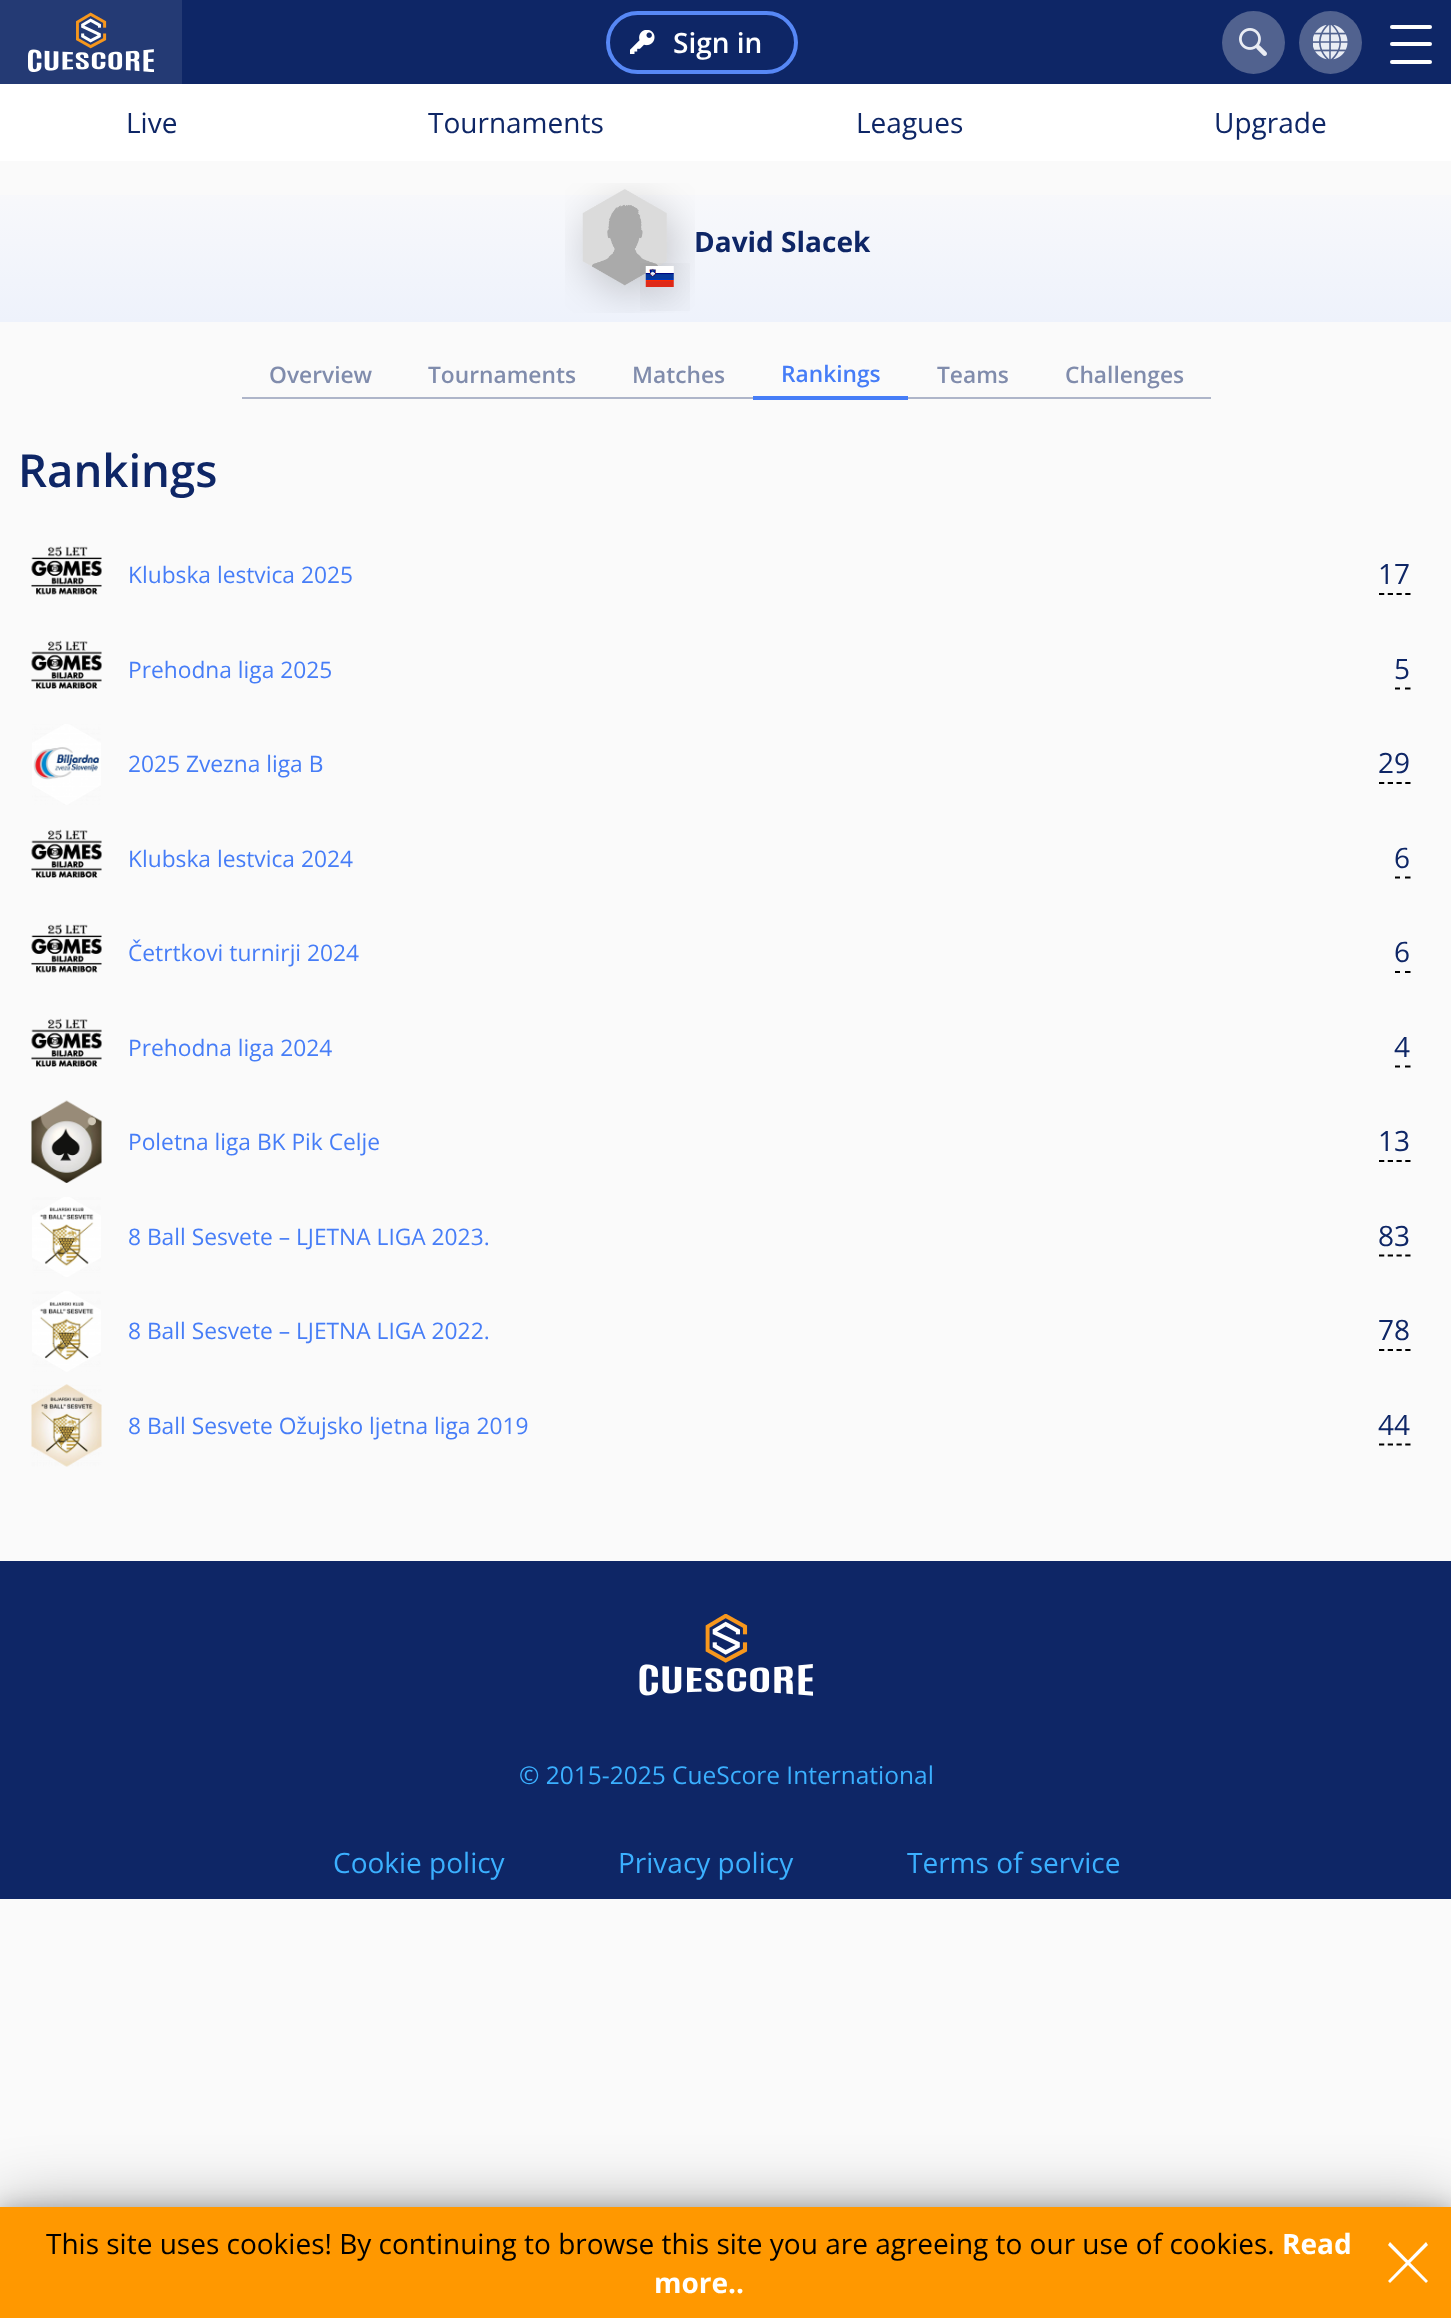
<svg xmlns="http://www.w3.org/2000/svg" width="1451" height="2318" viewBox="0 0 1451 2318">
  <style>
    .t1 { font: 600 28px Open Sans; fill: #fff; }
    .t2 { font: 28px Open Sans; fill: #0e2666; }
    .t3 { font: bold 28px Open Sans; fill: #0e2666; }
    .t4 { font: 600 22.75px Open Sans; fill: #808cac; }
    .t5 { font: 600 22.75px Open Sans; fill: #467df7; }
    .t6 { font: 600 45.5px Open Sans; fill: #0e2666; }
    .t7 { font: 22.75px Open Sans; fill: #467df7; }
    .t8 { font: 28px Open Sans; fill: #000; }
    .t9 { font: bold 28px Open Sans; fill: #fff; }
    .t10 { font: 24.5px Open Sans; fill: #3bb0ff; }
    .t11 { font: 28px Open Sans; fill: #3bb0ff; }
  </style>
  <defs>
    <linearGradient id="g1" gradientUnits="userSpaceOnUse" x1="726" y1="161" x2="726" y2="322"><stop offset="0" stop-color="#fafafb"/><stop offset="1" stop-color="#eef2fb"/></linearGradient>
  </defs>
  <rect width="100%" height="100%" fill="#fafafa"/>
  <rect x="182" y="0" width="1269" height="84" fill="#0e2666"/>
  <rect x="0" y="0" width="182" height="84" fill="#243a74"/>
  <image x="28" y="12" width="126" height="60" href="images/1.png"/>
  <image x="630" y="30" width="25" height="24" href="images/2.png"/>
  <rect x="608" y="13" width="188" height="59" rx="29.5" fill="none" stroke="#5788f6" stroke-width="4"/>
  <text x="673" y="53" class="t1">Sign in</text>
  <circle cx="1253.5" cy="42.5" r="31.5" fill="#51628f"/>
  <image x="1239" y="28" width="28" height="28" href="images/3.png"/>
  <circle cx="1330.5" cy="42.5" r="31.5" fill="#51628f"/>
  <image x="1313" y="25" width="35" height="35" href="images/4.png"/>
  <rect x="1390" y="42" width="42" height="4" rx="2" fill="#fff"/>
  <rect x="1390" y="25" width="42" height="4" rx="2" fill="#fff"/>
  <rect x="1390" y="60" width="42" height="4" rx="2" fill="#fff"/>
  <rect x="0" y="84" width="1451" height="77" fill="#fff"/>
  <text x="126" y="133" class="t2">Live</text>
  <text x="428" y="133" class="t2">Tournaments</text>
  <text x="856" y="133" class="t2">Leagues</text>
  <text x="1214" y="133" class="t2">Upgrade</text>
  <rect x="0" y="195" width="1451" height="127" fill="url(#g1)"/>
  <image x="565" y="183" width="130" height="130" href="images/5.png"/>
  <image x="640" y="263" width="50" height="48" href="images/6.png"/>
  <text x="694" y="252" class="t3">David Slacek</text>
  <rect x="242" y="397" width="511" height="2" fill="#aeb5c9"/>
  <text x="269" y="383" class="t4">Overview</text>
  <text x="428" y="383" class="t4">Tournaments</text>
  <text x="632" y="383" class="t4">Matches</text>
  <rect x="753" y="396" width="155" height="4" fill="#467df7"/>
  <text x="781" y="382" class="t5">Rankings</text>
  <rect x="908" y="397" width="303" height="2" fill="#aeb5c9"/>
  <text x="937" y="383" class="t4">Teams</text>
  <text x="1065" y="383" class="t4">Challenges</text>
  <text x="18" y="487" class="t6">Rankings</text>
  <image x="31" y="546" width="71" height="49" href="images/7.png"/>
  <text x="128" y="583" class="t7">Klubska lestvica 2025</text>
  <path d="M1379 594H1410.5" fill="none" stroke="#000" stroke-width="1.8" stroke-dasharray="5.25 3.5"/>
  <text x="1378" y="584" class="t2">17</text>
  <image x="31" y="640" width="71" height="49" href="images/8.png"/>
  <text x="128" y="678" class="t7">Prehodna liga 2025</text>
  <path d="M1395 688.5H1400M1405 688.5H1410.5" fill="none" stroke="#000" stroke-width="1.8"/>
  <text x="1394" y="679" class="t2">5</text>
  <image x="32" y="724" width="69" height="81" href="images/9.png"/>
  <text x="128" y="772" class="t7">2025 Zvezna liga B</text>
  <path d="M1379 783H1410.5" fill="none" stroke="#000" stroke-width="1.8" stroke-dasharray="5.25 3.5"/>
  <text x="1378" y="773" class="t2">29</text>
  <image x="31" y="829" width="71" height="49" href="images/8.png"/>
  <text x="128" y="867" class="t7">Klubska lestvica 2024</text>
  <path d="M1395 877.5H1400M1405 877.5H1410.5" fill="none" stroke="#000" stroke-width="1.8"/>
  <text x="1394" y="868" class="t2">6</text>
  <image x="31" y="924" width="71" height="49" href="images/7.png"/>
  <text x="128" y="961" class="t7">Četrtkovi turnirji 2024</text>
  <path d="M1395 972H1400M1405 972H1410.5" fill="none" stroke="#000" stroke-width="1.8"/>
  <text x="1394" y="962" class="t2">6</text>
  <image x="31" y="1018" width="71" height="49" href="images/8.png"/>
  <text x="128" y="1056" class="t7">Prehodna liga 2024</text>
  <path d="M1395 1066.5H1400M1405 1066.5H1410.5" fill="none" stroke="#000" stroke-width="1.8"/>
  <text x="1394" y="1057" class="t2">4</text>
  <image x="31" y="1100" width="71" height="83" href="images/10.png"/>
  <text x="128" y="1150" class="t7">Poletna liga BK Pik Celje</text>
  <path d="M1379 1161H1410.5" fill="none" stroke="#000" stroke-width="1.8" stroke-dasharray="5.25 3.5"/>
  <text x="1378" y="1151" class="t2">13</text>
  <image x="32" y="1197" width="69" height="80" href="images/11.png"/>
  <text x="128" y="1245" class="t7">8 Ball Sesvete – LJETNA LIGA 2023.</text>
  <path d="M1379 1255.5H1410.5" fill="none" stroke="#000" stroke-width="1.8" stroke-dasharray="5.25 3.5"/>
  <text x="1378" y="1246" class="t2">83</text>
  <image x="32" y="1291" width="69" height="81" href="images/12.png"/>
  <text x="128" y="1339" class="t7">8 Ball Sesvete – LJETNA LIGA 2022.</text>
  <path d="M1379 1350H1410.5" fill="none" stroke="#000" stroke-width="1.8" stroke-dasharray="5.25 3.5"/>
  <text x="1378" y="1340" class="t2">78</text>
  <image x="31" y="1384" width="71" height="83" href="images/13.png"/>
  <text x="128" y="1434" class="t7">8 Ball Sesvete Ožujsko ljetna liga 2019</text>
  <path d="M1379 1444.5H1410.5" fill="none" stroke="#000" stroke-width="1.8" stroke-dasharray="5.25 3.5"/>
  <text x="1378" y="1435" class="t2">44</text>
  <rect x="0" y="2207" width="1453" height="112" fill="#00000038" filter="blur(10.5px)"/>
  <rect x="0" y="2207" width="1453" height="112" fill="#0000004d" filter="blur(33px)"/>
  <rect x="0" y="2207" width="1451" height="111" fill="#ff9800"/>
  <text x="46" y="2254" class="t8">This site uses cookies! By continuing to browse this site you are agreeing to our use of cookies.</text>
  <text x="1282" y="2254" class="t9">Read</text>
  <text x="654" y="2293" class="t9">more..</text>
  <path d="M1390 2242L1428 2281L1426 2283L1388 2245Z" fill="#fff"/>
  <path d="M1388 2281L1426 2242L1428 2245L1390 2283Z" fill="#fff"/>
  <rect x="0" y="1561" width="1451" height="338" fill="#0e2666"/>
  <image x="639" y="1614" width="174" height="82" href="images/14.png"/>
  <text x="519" y="1784" class="t10">© 2015-2025 CueScore International</text>
  <text x="333" y="1873" class="t11">Cookie policy</text>
  <text x="618" y="1873" class="t11">Privacy policy</text>
  <text x="907" y="1873" class="t11">Terms of service</text>
</svg>
